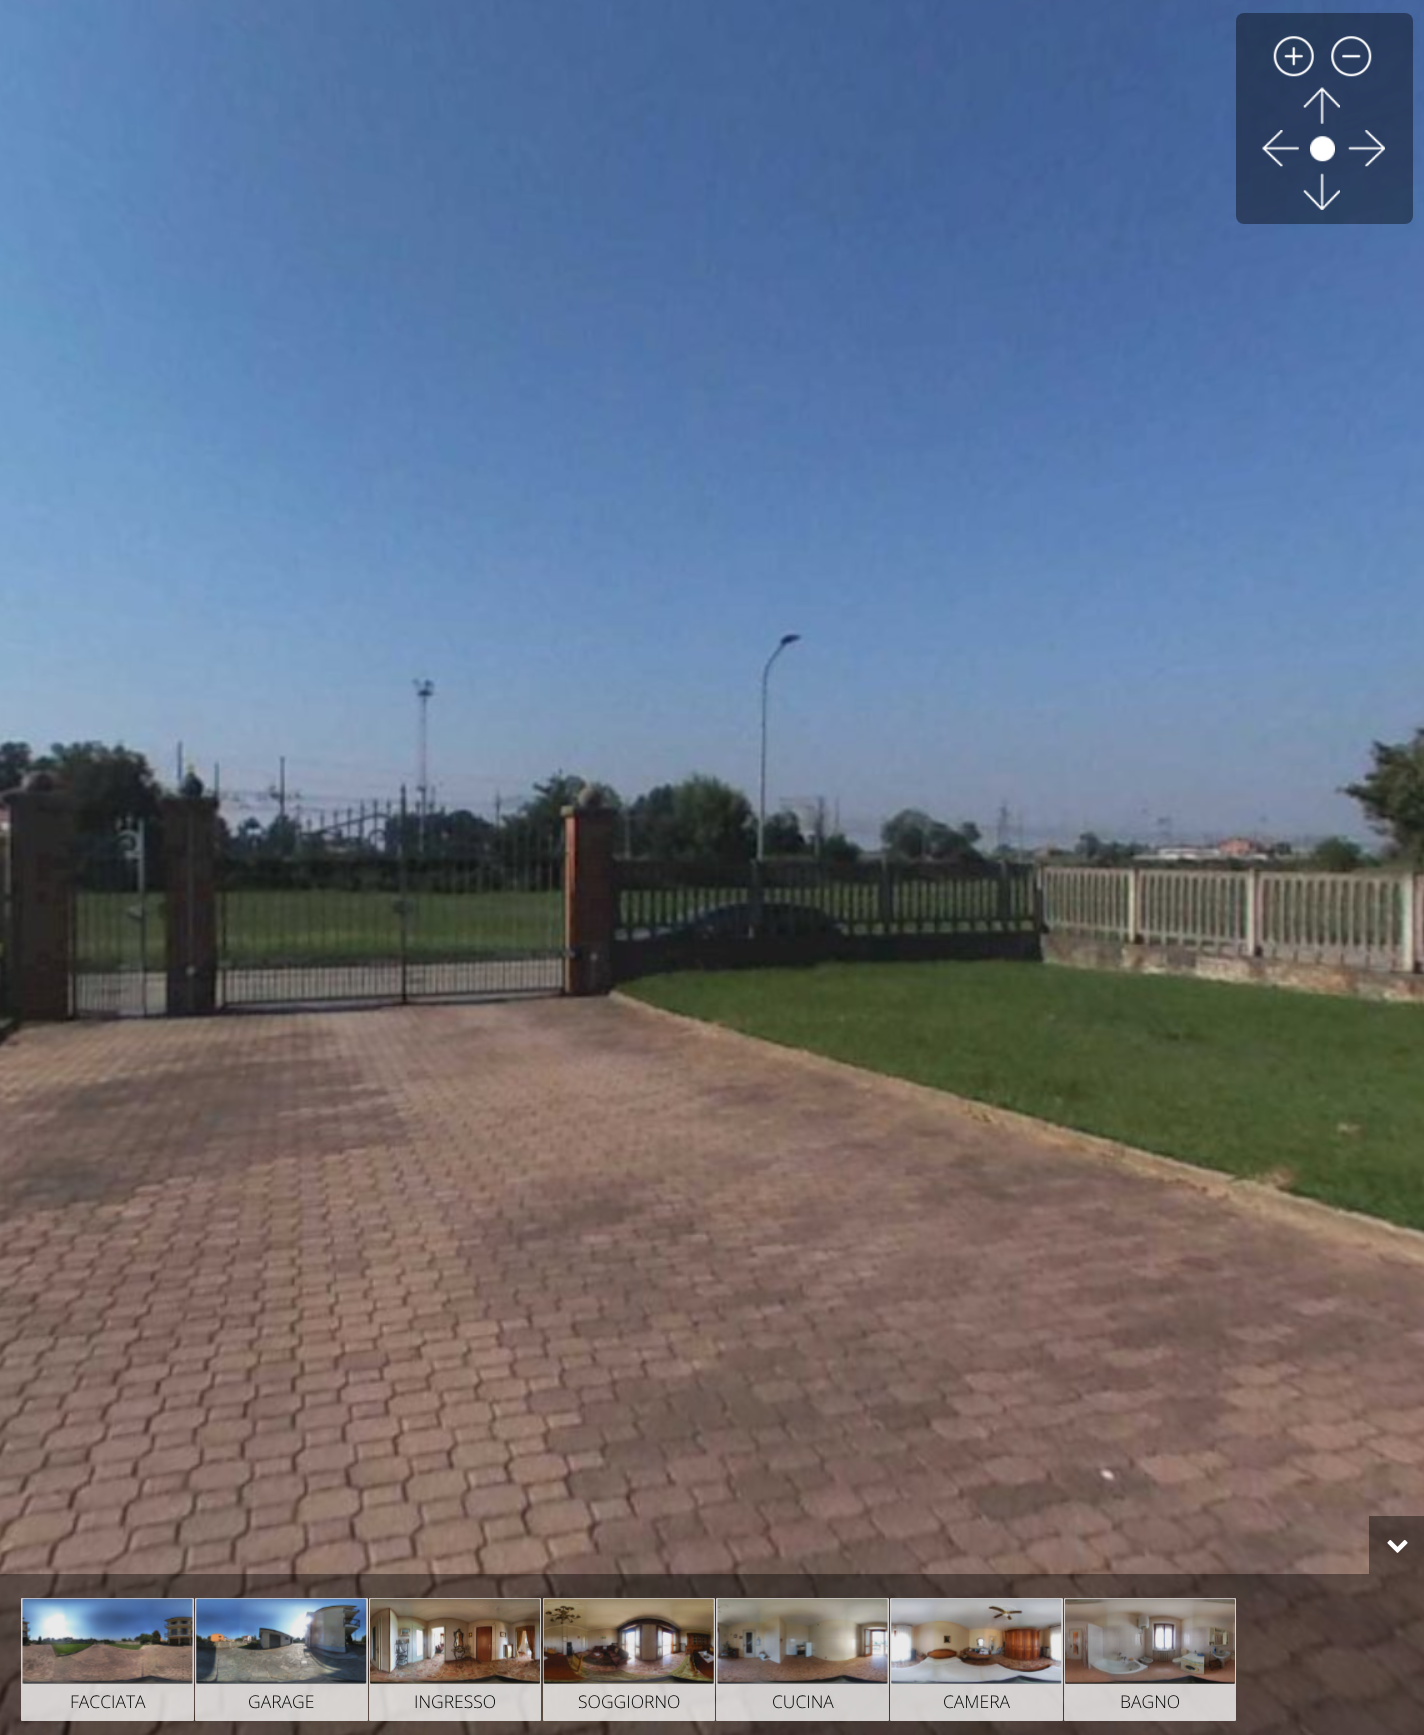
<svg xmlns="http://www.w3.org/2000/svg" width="1424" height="1735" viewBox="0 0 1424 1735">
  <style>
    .t1 { font: 300 17.5px Open Sans; fill: #000; }
  </style>
  <rect width="100%" height="100%" fill="#fff"/>
  <image x="0" y="0" width="1424" height="1735" href="images/8.png"/>
  <rect x="1236" y="13" width="177" height="211" rx="8" fill="#00000066"/>
  <image x="1273" y="36" width="41" height="41" href="images/1.png"/>
  <image x="1331" y="36" width="41" height="41" href="images/2.png"/>
  <image x="1303" y="87" width="37" height="37" href="images/3.png"/>
  <image x="1262" y="130" width="37" height="37" href="images/4.png"/>
  <image x="1310" y="136" width="25" height="26" href="images/5.png"/>
  <image x="1348" y="130" width="37" height="37" href="images/6.png"/>
  <image x="1303" y="173" width="37" height="37" href="images/7.png"/>
  <rect x="0" y="1574" width="1424" height="161" fill="#00000066"/>
  <rect x="1369" y="1516" width="55" height="58" fill="#00000066"/>
  <image x="1387" y="1540" width="21" height="13" href="images/9.png"/>
  <rect x="21" y="1598" width="173" height="123" rx="1" fill="#ffffffc2"/>
  <image x="22" y="1598" width="171" height="86" href="images/10.png"/>
  <text x="70" y="1708" class="t1">FACCIATA</text>
  <rect x="195" y="1598" width="173" height="123" rx="1" fill="#ffffffc2"/>
  <image x="196" y="1598" width="171" height="86" href="images/11.png"/>
  <text x="248" y="1708" class="t1">GARAGE</text>
  <rect x="369" y="1598" width="172" height="123" rx="1" fill="#ffffffc2"/>
  <image x="370" y="1598" width="170" height="86" href="images/12.png"/>
  <text x="414" y="1708" class="t1">INGRESSO</text>
  <rect x="543" y="1598" width="172" height="123" rx="1" fill="#ffffffc2"/>
  <image x="543" y="1598" width="171" height="86" href="images/13.png"/>
  <text x="578" y="1708" class="t1">SOGGIORNO</text>
  <rect x="716" y="1598" width="173" height="123" rx="1" fill="#ffffffc2"/>
  <image x="717" y="1598" width="171" height="86" href="images/14.png"/>
  <text x="772" y="1708" class="t1">CUCINA</text>
  <rect x="890" y="1598" width="173" height="123" rx="1" fill="#ffffffc2"/>
  <image x="891" y="1598" width="171" height="86" href="images/15.png"/>
  <text x="943" y="1708" class="t1">CAMERA</text>
  <rect x="1064" y="1598" width="172" height="123" rx="1" fill="#ffffffc2"/>
  <image x="1065" y="1598" width="170" height="86" href="images/16.png"/>
  <text x="1120" y="1708" class="t1">BAGNO</text>
</svg>
